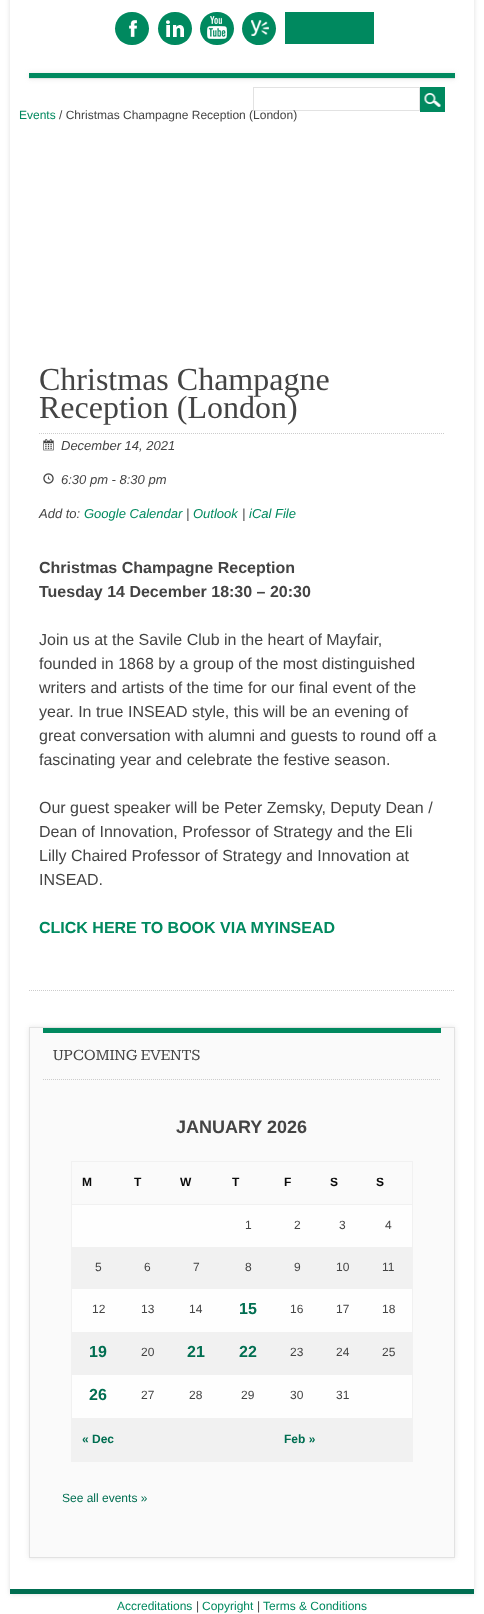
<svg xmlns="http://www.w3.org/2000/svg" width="484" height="1614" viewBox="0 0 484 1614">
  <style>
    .t1 { font: 12px Liberation Sans; fill: #00895f; }
    .t2 { font: 12px Liberation Sans; fill: #444; }
    .t3 { font: 32px Liberation Serif; fill: #444; }
    .t4 { font: italic 13px Liberation Sans; fill: #444; }
    .t5 { font: italic 13px Liberation Sans; fill: #00895f; }
    .t6 { font: bold 16px Liberation Sans; fill: #444; }
    .t7 { font: 16px Liberation Sans; fill: #444; }
    .t8 { font: bold 16px Liberation Sans; fill: #00895f; }
    .t9 { font: 16px Kameron; fill: #444; }
    .t10 { font: bold 18px Liberation Sans; fill: #444; }
    .t11 { font: bold 12px Liberation Sans; fill: #0a0a0a; }
    .t12 { font: bold 16px Liberation Sans; fill: #006e51; }
    .t13 { font: bold 12px Liberation Sans; fill: #006e51; }
    .t14 { font: 12px Liberation Sans; fill: #006e51; }
  </style>
  <defs>
    <clipPath id="clip1"><path d="M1 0H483V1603H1ZM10-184H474V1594H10Z" clip-rule="evenodd"/></clipPath>
  </defs>
  <rect width="100%" height="100%" fill="#fff"/>
  <g clip-path="url(#clip1)">
    <rect x="10" y="-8" width="464" height="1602" fill="#dedede" filter="blur(2.5px)"/>
  </g>
  <rect x="10" y="1589" width="464" height="5" fill="#006e51"/>
  <rect x="115" y="12" width="34" height="33" rx="16.5" fill="#00895f"/>
  <image x="129" y="20" width="8" height="17" href="images/1.png"/>
  <rect x="158" y="12" width="34" height="33" rx="16.5" fill="#00895f"/>
  <image x="166" y="20" width="18" height="17" href="images/2.png"/>
  <rect x="200" y="12" width="34" height="33" rx="16.5" fill="#00895f"/>
  <image x="207" y="16" width="20" height="23" href="images/3.png"/>
  <rect x="242" y="12" width="34" height="33" rx="16.5" fill="#00895f"/>
  <image x="251" y="20" width="18" height="16" href="images/4.png"/>
  <rect x="285" y="12" width="89" height="32" fill="#00895f"/>
  <rect x="29" y="73" width="426" height="6" fill="#e7e7e7" filter="blur(2.5px)"/>
  <rect x="29" y="73" width="426" height="5" fill="#00895f"/>
  <rect x="29" y="78" width="426" height="1" fill="#e2e2e2"/>
  <rect x="253.5" y="87.5" width="166" height="23" fill="none" stroke="#e2e2e2"/>
  <rect x="420" y="87" width="25" height="25" fill="#00895f"/>
  <image x="424" y="93" width="17" height="14" href="images/5.png"/>
  <text x="19" y="119" class="t1">Events</text>
  <text x="59" y="119" class="t2">/ Christmas Champagne Reception (London)</text>
  <path d="M29 990.5H455" fill="none" stroke="#ccc" stroke-dasharray="1 1"/>
  <path d="M39 433.5H445" fill="none" stroke="#ccc" stroke-dasharray="1 1"/>
  <text x="39" y="390" class="t3">Christmas Champagne</text>
  <text x="39" y="418" class="t3">Reception (London)</text>
  <image x="43" y="439" width="11" height="12" href="images/6.png"/>
  <text x="61" y="450" class="t4">December 14, 2021</text>
  <image x="43" y="473" width="11" height="11" href="images/7.png"/>
  <text x="61" y="484" class="t4">6:30 pm - 8:30 pm</text>
  <text x="39" y="518" class="t4">Add to:</text>
  <text x="84" y="518" class="t5">Google Calendar</text>
  <text x="186" y="518" class="t4">|</text>
  <text x="193" y="518" class="t5">Outlook</text>
  <text x="242" y="518" class="t4">|</text>
  <text x="249" y="518" class="t5">iCal File</text>
  <text x="39" y="573" class="t6">Christmas Champagne Reception</text>
  <text x="39" y="597" class="t6">Tuesday 14 December 18:30 – 20:30</text>
  <text x="39" y="645" class="t7">Join us at the Savile Club in the heart of Mayfair,</text>
  <text x="39" y="669" class="t7">founded in 1868 by a group of the most distinguished</text>
  <text x="39" y="693" class="t7">writers and artists of the time for our final event of the</text>
  <text x="39" y="717" class="t7">year. In true INSEAD style, this will be an evening of</text>
  <text x="39" y="741" class="t7">great conversation with alumni and guests to round off a</text>
  <text x="39" y="765" class="t7">fascinating year and celebrate the festive season.</text>
  <text x="39" y="813" class="t7">Our guest speaker will be Peter Zemsky, Deputy Dean /</text>
  <text x="39" y="837" class="t7">Dean of Innovation, Professor of Strategy and the Eli</text>
  <text x="39" y="861" class="t7">Lilly Chaired Professor of Strategy and Innovation at</text>
  <text x="39" y="885" class="t7">INSEAD.</text>
  <text x="39" y="933" class="t8">CLICK HERE TO BOOK VIA MYINSEAD</text>
  <rect x="29" y="1027" width="426" height="531" fill="#e7e7e7" filter="blur(2.5px)"/>
  <rect x="29.5" y="1027.5" width="425" height="530" fill="#fafafa" stroke="#e2e2e2"/>
  <rect x="43" y="1028" width="398" height="5" fill="#00895f"/>
  <path d="M43 1079.5H441" fill="none" stroke="#ccc" stroke-dasharray="1 1"/>
  <text x="53" y="1060" class="t9">UPCOMING EVENTS</text>
  <text x="176" y="1133" class="t10">JANUARY 2026</text>
  <rect x="71" y="1161" width="342" height="1" fill="#f1f1f1"/>
  <rect x="71" y="1204" width="342" height="1" fill="#f1f1f1"/>
  <rect x="412" y="1204" width="1" height="215" fill="#f1f1f1"/>
  <rect x="412" y="1161" width="1" height="44" fill="#f1f1f1"/>
  <rect x="71" y="1418" width="342" height="1" fill="#f1f1f1"/>
  <rect x="71" y="1204" width="1" height="215" fill="#f1f1f1"/>
  <rect x="71" y="1161" width="1" height="44" fill="#f1f1f1"/>
  <text x="82" y="1186" class="t11">M</text>
  <text x="134" y="1186" class="t11">T</text>
  <text x="180" y="1186" class="t11">W</text>
  <text x="232" y="1186" class="t11">T</text>
  <text x="284" y="1186" class="t11">F</text>
  <text x="330" y="1186" class="t11">S</text>
  <text x="376" y="1186" class="t11">S</text>
  <rect x="72" y="1205" width="340" height="213" fill="#fefefe"/>
  <text x="245" y="1229" class="t2">1</text>
  <text x="294" y="1229" class="t2">2</text>
  <text x="339" y="1229" class="t2">3</text>
  <text x="385" y="1229" class="t2">4</text>
  <rect x="72" y="1247" width="340" height="42" fill="#f1f1f1"/>
  <text x="95" y="1271" class="t2">5</text>
  <text x="144" y="1271" class="t2">6</text>
  <text x="193" y="1271" class="t2">7</text>
  <text x="245" y="1271" class="t2">8</text>
  <text x="294" y="1271" class="t2">9</text>
  <text x="336" y="1271" class="t2">10</text>
  <text x="382" y="1271" class="t2">11</text>
  <text x="92" y="1313" class="t2">12</text>
  <text x="141" y="1313" class="t2">13</text>
  <text x="189" y="1313" class="t2">14</text>
  <text x="239" y="1314" class="t12">15</text>
  <text x="290" y="1313" class="t2">16</text>
  <text x="336" y="1313" class="t2">17</text>
  <text x="382" y="1313" class="t2">18</text>
  <rect x="72" y="1332" width="340" height="43" fill="#f1f1f1"/>
  <text x="89" y="1357" class="t12">19</text>
  <text x="141" y="1356" class="t2">20</text>
  <text x="187" y="1357" class="t12">21</text>
  <text x="239" y="1357" class="t12">22</text>
  <text x="290" y="1356" class="t2">23</text>
  <text x="336" y="1356" class="t2">24</text>
  <text x="382" y="1356" class="t2">25</text>
  <text x="89" y="1400" class="t12">26</text>
  <text x="141" y="1399" class="t2">27</text>
  <text x="189" y="1399" class="t2">28</text>
  <text x="241" y="1399" class="t2">29</text>
  <text x="290" y="1399" class="t2">30</text>
  <text x="336" y="1399" class="t2">31</text>
  <rect x="72" y="1419" width="340" height="42" fill="#f1f1f1"/>
  <rect x="412" y="1418" width="1" height="44" fill="#f1f1f1"/>
  <rect x="71" y="1461" width="342" height="1" fill="#f1f1f1"/>
  <rect x="71" y="1418" width="1" height="44" fill="#f1f1f1"/>
  <text x="82" y="1443" class="t13">« Dec</text>
  <text x="284" y="1443" class="t13">Feb »</text>
  <text x="62" y="1502" class="t14">See all events »</text>
  <text x="117" y="1610" class="t1">Accreditations</text>
  <text x="196" y="1610" class="t2">|</text>
  <text x="202" y="1610" class="t1">Copyright</text>
  <text x="257" y="1610" class="t2">|</text>
  <text x="263" y="1610" class="t1">Terms &amp; Conditions</text>
</svg>
